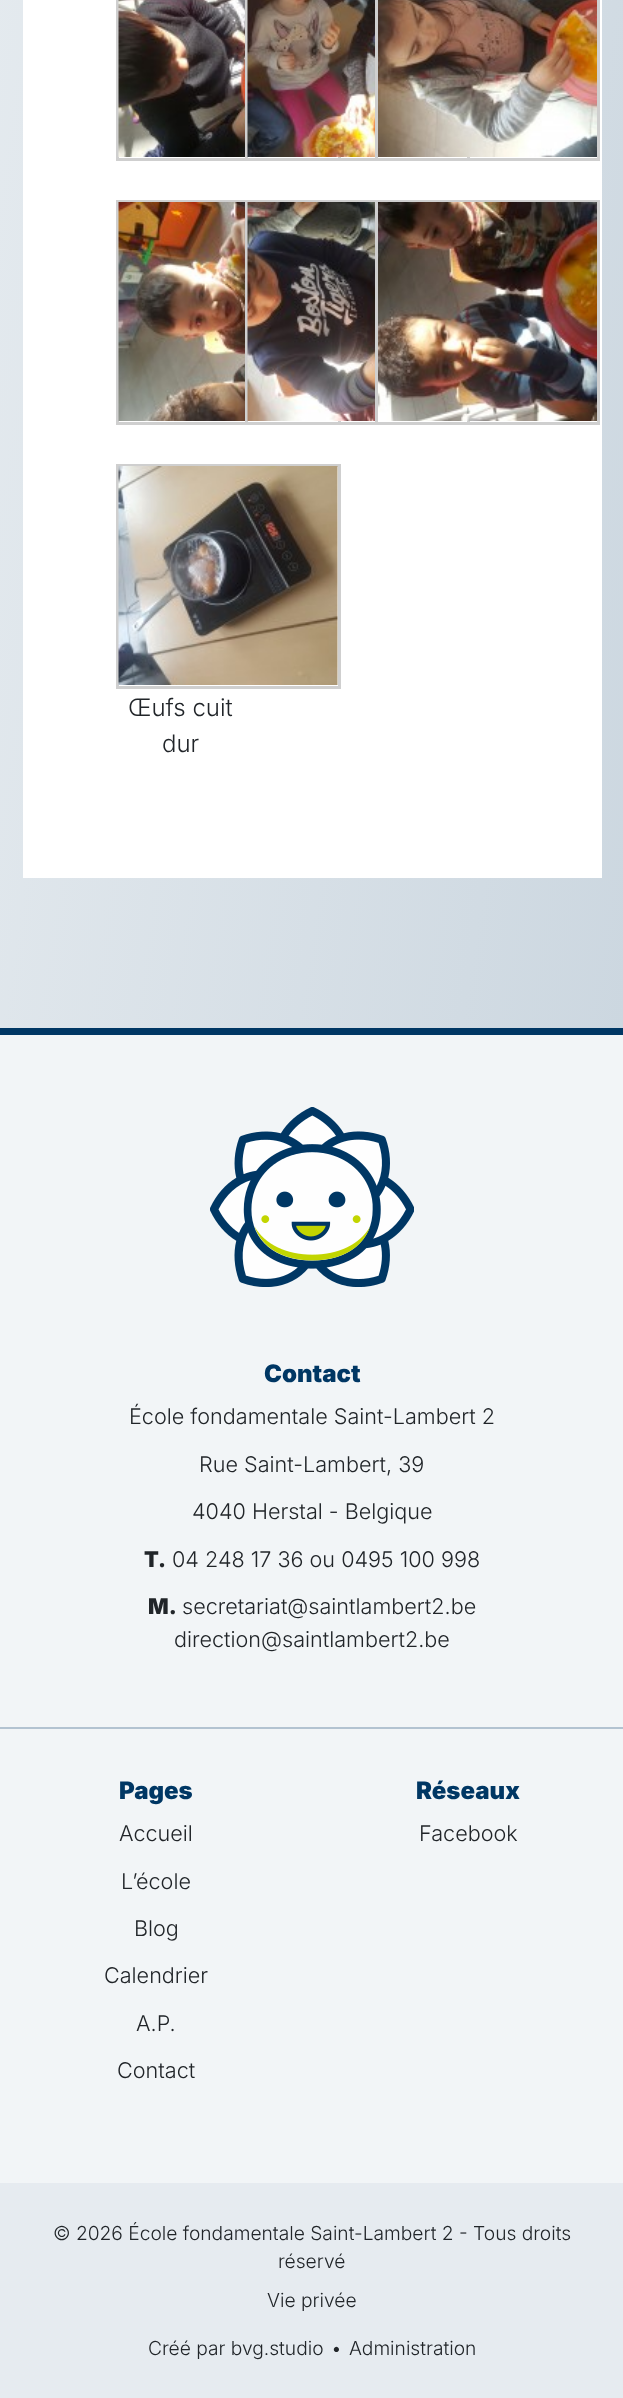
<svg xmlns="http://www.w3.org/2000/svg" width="623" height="2398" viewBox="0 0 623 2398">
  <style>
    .t1 { font: 300 24px Inter; fill: #212529; }
    .t2 { font: 900 24px Inter; fill: #003764; }
    .t3 { font: 300 21.6px Inter; fill: #212529; }
    .t4 { font: 900 21.6px Inter; fill: #212529; }
    .t5 { font: 300 19.2px Inter; fill: #212529; }
  </style>
  <defs>
    <linearGradient id="g1" gradientUnits="userSpaceOnUse" x1="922" y1="-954" x2="-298" y2="-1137"><stop offset="0" stop-color="#ccd7e0"/><stop offset="1" stop-color="#f2f5f7"/></linearGradient>
  </defs>
  <rect width="100%" height="100%" fill="#fff"/>
  <rect x="0" y="0" width="623" height="1028" fill="url(#g1)"/>
  <rect x="23" y="0" width="579" height="878" fill="#fff"/>
  <rect x="117.5" y="-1.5" width="222" height="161" fill="none" stroke="#cfcfcf" stroke-width="3"/>
  <image x="118" y="0" width="127" height="157" href="images/1.png"/>
  <rect x="246.5" y="-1.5" width="222" height="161" fill="none" stroke="#cfcfcf" stroke-width="3"/>
  <image x="247" y="0" width="128" height="157" href="images/2.png"/>
  <rect x="376.5" y="-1.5" width="222" height="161" fill="none" stroke="#cfcfcf" stroke-width="3"/>
  <image x="378" y="0" width="219" height="157" href="images/3.png"/>
  <rect x="117.5" y="201.5" width="222" height="222" fill="none" stroke="#cfcfcf" stroke-width="3"/>
  <image x="118" y="202" width="127" height="219" href="images/4.png"/>
  <rect x="246.5" y="201.5" width="222" height="222" fill="none" stroke="#cfcfcf" stroke-width="3"/>
  <image x="247" y="202" width="128" height="219" href="images/5.png"/>
  <rect x="376.5" y="201.5" width="222" height="222" fill="none" stroke="#cfcfcf" stroke-width="3"/>
  <image x="378" y="202" width="219" height="219" href="images/6.png"/>
  <rect x="117.5" y="465.5" width="222" height="222" fill="none" stroke="#cfcfcf" stroke-width="3"/>
  <image x="118" y="466" width="220" height="219" href="images/7.png"/>
  <text x="128" y="716" class="t1">Œufs cuit</text>
  <text x="162" y="752" class="t1">dur</text>
  <rect x="0" y="1035" width="623" height="1148" fill="#f2f5f7"/>
  <rect x="0" y="1028" width="623" height="7" fill="#003764"/>
  <image x="210" y="1107" width="204" height="180" href="images/8.png"/>
  <rect x="0" y="1727" width="623" height="2" fill="#b3c3d1"/>
  <text x="264" y="1382" class="t2">Contact</text>
  <text x="129" y="1424" class="t3">École fondamentale Saint-Lambert 2</text>
  <text x="199" y="1472" class="t3">Rue Saint-Lambert, 39</text>
  <text x="192" y="1519" class="t3">4040 Herstal - Belgique</text>
  <text x="144" y="1567" class="t4">T.</text>
  <text x="172" y="1567" class="t3">04 248 17 36 ou 0495 100 998</text>
  <text x="148" y="1614" class="t4">M.</text>
  <text x="182" y="1614" class="t3">secretariat@saintlambert2.be</text>
  <text x="174" y="1647" class="t3">direction@saintlambert2.be</text>
  <text x="119" y="1799" class="t2">Pages</text>
  <text x="119" y="1841" class="t3">Accueil</text>
  <text x="121" y="1889" class="t3">L’école</text>
  <text x="134" y="1936" class="t3">Blog</text>
  <text x="104" y="1983" class="t3">Calendrier</text>
  <text x="136" y="2031" class="t3">A.P.</text>
  <text x="117" y="2078" class="t3">Contact</text>
  <text x="416" y="1799" class="t2">Réseaux</text>
  <text x="419" y="1841" class="t3">Facebook</text>
  <rect x="0" y="2183" width="623" height="215" fill="#e6ebf0"/>
  <text x="53" y="2240" class="t5">© 2026 École fondamentale Saint-Lambert 2 - Tous droits</text>
  <text x="278" y="2268" class="t5">réservé</text>
  <text x="267" y="2307" class="t5">Vie privée</text>
  <text x="148" y="2355" class="t5">Créé par bvg.studio</text>
  <text x="331" y="2355" class="t5">•</text>
  <text x="349" y="2355" class="t5">Administration</text>
</svg>
